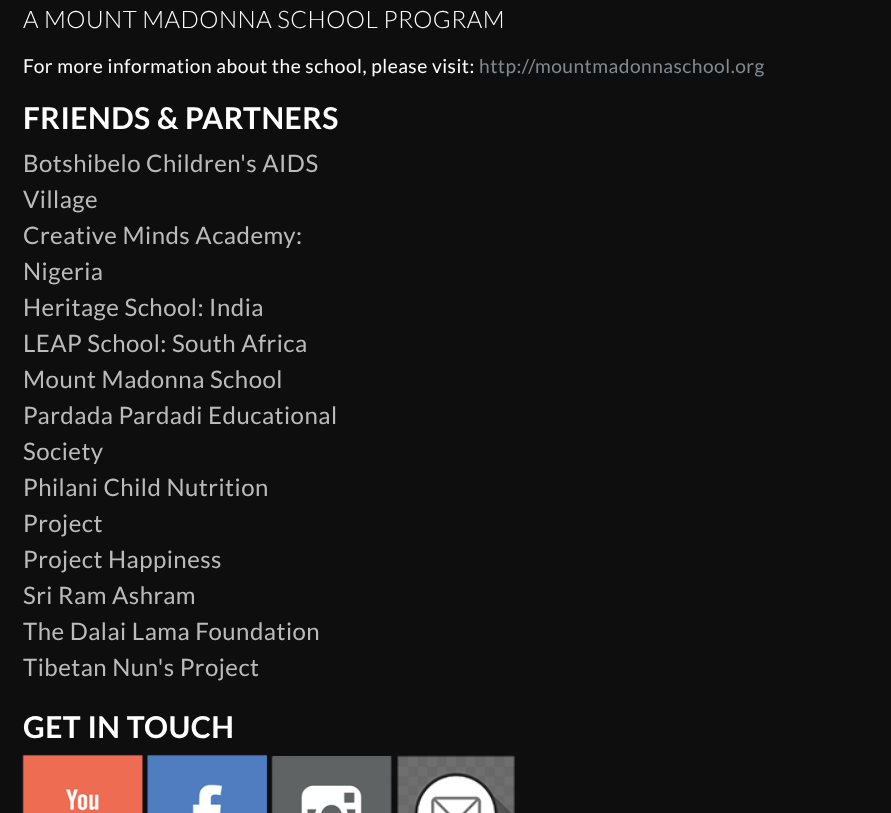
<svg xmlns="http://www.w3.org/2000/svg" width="891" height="813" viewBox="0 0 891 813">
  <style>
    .t1 { font: 300 24px Lato; letter-spacing: 0.48px; fill: #fff; }
    .t2 { font: 19.2px Lato; letter-spacing: 0.48px; fill: #fff; }
    .t3 { font: 19.2px Lato; letter-spacing: 0.48px; fill: #818a91; }
    .t4 { font: bold 30px Lato; letter-spacing: 0.48px; fill: #fff; }
    .t5 { font: 24px Lato; letter-spacing: 0.48px; fill: #bbb; }
  </style>
  <rect width="100%" height="100%" fill="#0e0e0f"/>
  <text x="23" y="28" class="t1">A MOUNT MADONNA SCHOOL PROGRAM</text>
  <text x="23" y="73" class="t2">For more information about the school, please visit:</text>
  <text x="479" y="73" class="t3">http://mountmadonnaschool.org</text>
  <text x="23" y="129" class="t4">FRIENDS &amp; PARTNERS</text>
  <text x="23" y="172" class="t5">Botshibelo Children's AIDS</text>
  <text x="23" y="208" class="t5">Village</text>
  <text x="23" y="244" class="t5">Creative Minds Academy:</text>
  <text x="23" y="280" class="t5">Nigeria</text>
  <text x="23" y="316" class="t5">Heritage School: India</text>
  <text x="23" y="352" class="t5">LEAP School: South Africa</text>
  <text x="23" y="388" class="t5">Mount Madonna School</text>
  <text x="23" y="424" class="t5">Pardada Pardadi Educational</text>
  <text x="23" y="460" class="t5">Society</text>
  <text x="23" y="496" class="t5">Philani Child Nutrition</text>
  <text x="23" y="532" class="t5">Project</text>
  <text x="23" y="568" class="t5">Project Happiness</text>
  <text x="23" y="604" class="t5">Sri Ram Ashram</text>
  <text x="23" y="640" class="t5">The Dalai Lama Foundation</text>
  <text x="23" y="676" class="t5">Tibetan Nun's Project</text>
  <text x="23" y="738" class="t4">GET IN TOUCH</text>
  <image x="22" y="754" width="121" height="59" href="images/1.png"/>
  <image x="147" y="754" width="120" height="59" href="images/2.png"/>
  <image x="271" y="756" width="121" height="57" href="images/3.png"/>
  <image x="397" y="755" width="118" height="58" href="images/4.png"/>
</svg>
